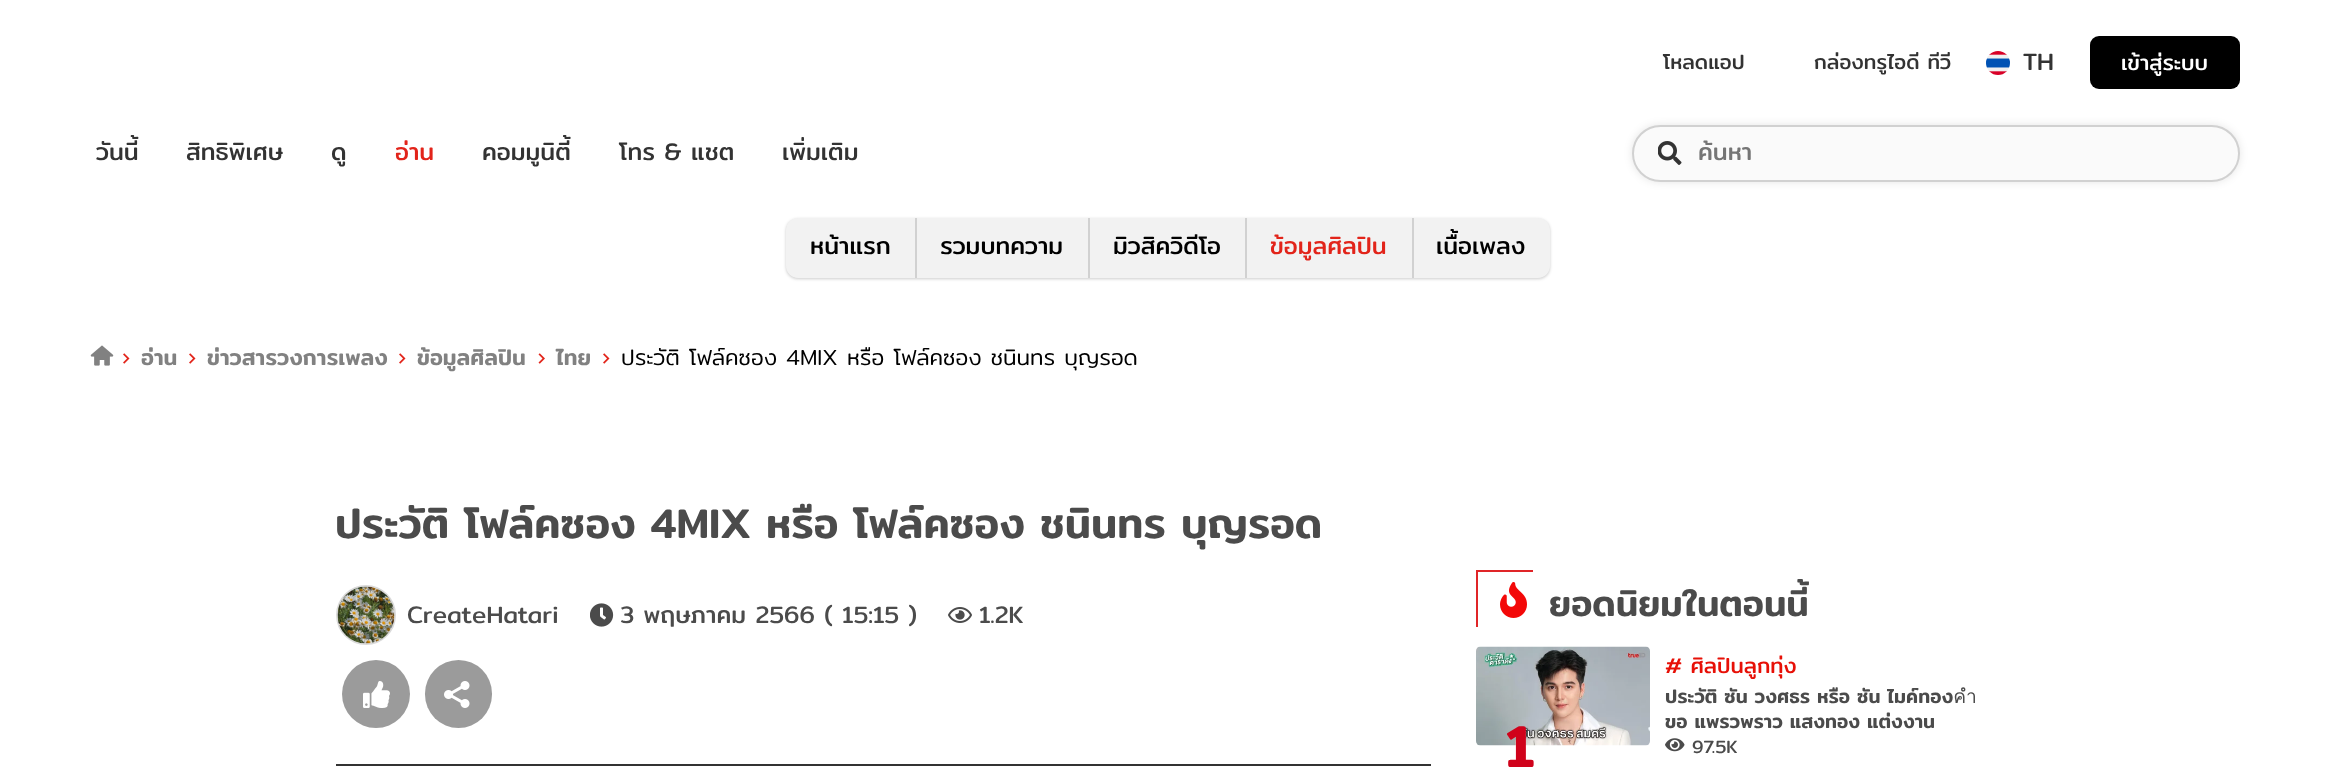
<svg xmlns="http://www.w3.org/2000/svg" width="2335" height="777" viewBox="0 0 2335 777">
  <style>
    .t1 { font: 20.5px Mitr; fill: #333; }
    .t2 { font: 24px Mitr; fill: #333; }
    .t3 { font: 21.5px Mitr; fill: #fff; }
    .t4 { font: 24px Mitr; fill: #e2241a; }
    .t5 { font: 24px Mitr; fill: #757575; }
    .t6 { font: 24px Mitr; fill: #000; }
    .t7 { font: 500 22.1px Mitr; fill: #818181; }
    .t8 { font: 300 22.1px Mitr; fill: #000; }
    .t9 { font: 500 42px Mitr; fill: #4b4b4b; }
    .t10 { font: 24px Mitr; fill: #4b4b4b; }
    .t11 { font: 500 36px Mitr; fill: #4b4b4b; }
    .t12 { font: 500 60px Mitr; fill: #d0021b; }
    .t13 { font: 21.5px Mitr; fill: #e71007; }
    .t14 { font: 500 19.25px Mitr; fill: #4b4b4b; }
    .t15 { font: 18px Mitr; fill: #4b4b4b; }
  </style>
  <defs>
    <clipPath id="clip1"><rect x="1698" y="134" width="464" height="37"/></clipPath>
  </defs>
  <rect width="100%" height="100%" fill="#fff"/>
  <text x="1663" y="69" class="t1">โหลดแอป</text>
  <text x="1814" y="69" class="t1">กล่องทรูไอดี ทีวี</text>
  <image x="1986" y="51" width="24" height="24" href="images/1.png"/>
  <text x="2023" y="70" class="t2">TH</text>
  <rect x="2090" y="36" width="150" height="53" rx="9" fill="#000"/>
  <text x="2121" y="70" class="t3">เข้าสู่ระบบ</text>
  <text x="96" y="160" class="t2">วันนี้</text>
  <text x="186" y="160" class="t2">สิทธิพิเศษ</text>
  <text x="331" y="160" class="t2">ดู</text>
  <text x="395" y="160" class="t4">อ่าน</text>
  <text x="482" y="160" class="t2">คอมมูนิตี้</text>
  <text x="619" y="160" class="t2">โทร &amp; แชต</text>
  <text x="782" y="160" class="t2">เพิ่มเติม</text>
  <rect x="1632" y="125" width="608" height="57" rx="28.5" fill="#0000001a" filter="blur(4px)"/>
  <rect x="1633" y="126" width="606" height="55" rx="27.5" fill="#fafafa" stroke="#d1d1d1" stroke-width="2"/>
  <image x="1658" y="141" width="24" height="24" href="images/2.png"/>
  <g clip-path="url(#clip1)">
    <text x="1698" y="160" class="t5">ค้นหา</text>
  </g>
  <rect x="786" y="219" width="764" height="60" rx="12" fill="#00000033" filter="blur(1.5px)"/>
  <path d="M798 218H915V278H798C791.5 278 786 272.5 786 266V230C786 223.5 791.5 218 798 218Z" fill="#f2f2f2"/>
  <text x="810" y="254" class="t6">หน้าแรก</text>
  <rect x="917" y="218" width="171" height="60" fill="#f2f2f2"/>
  <rect x="915" y="218" width="2" height="60" fill="#d1d1d1"/>
  <text x="940" y="254" class="t6">รวมบทความ</text>
  <rect x="1090" y="218" width="155" height="60" fill="#f2f2f2"/>
  <rect x="1088" y="218" width="2" height="60" fill="#d1d1d1"/>
  <text x="1113" y="254" class="t6">มิวสิควิดีโอ</text>
  <rect x="1247" y="218" width="165" height="60" fill="#f2f2f2"/>
  <rect x="1245" y="218" width="2" height="60" fill="#d1d1d1"/>
  <text x="1270" y="254" class="t4">ข้อมูลศิลปิน</text>
  <path d="M1412 218H1538C1544.5 218 1550 223.5 1550 230V266C1550 272.5 1544.5 278 1538 278H1412Z" fill="#f2f2f2"/>
  <rect x="1412" y="218" width="2" height="60" fill="#d1d1d1"/>
  <text x="1436" y="254" class="t6">เนื้อเพลง</text>
  <image x="90" y="345" width="24" height="21" href="images/3.png"/>
  <image x="123" y="353" width="7" height="11" href="images/4.png"/>
  <text x="141" y="365" class="t7">อ่าน</text>
  <image x="189" y="353" width="7" height="11" href="images/4.png"/>
  <text x="207" y="365" class="t7">ข่าวสารวงการเพลง</text>
  <image x="399" y="353" width="7" height="11" href="images/4.png"/>
  <text x="417" y="365" class="t7">ข้อมูลศิลปิน</text>
  <image x="538" y="353" width="7" height="11" href="images/5.png"/>
  <text x="556" y="365" class="t7">ไทย</text>
  <image x="603" y="353" width="7" height="11" href="images/4.png"/>
  <text x="621" y="365" class="t8">ประวัติ โฟล์คซอง 4MIX หรือ โฟล์คซอง ชนินทร บุญรอด</text>
  <rect x="336" y="764" width="1095" height="2" fill="#333"/>
  <text x="335" y="538" class="t9">ประวัติ โฟล์คซอง 4MIX หรือ โฟล์คซอง ชนินทร บุญรอด</text>
  <circle cx="366" cy="615" r="29" fill="none" stroke="#dadada" stroke-width="2"/>
  <image x="337" y="586" width="58" height="58" href="images/6.png"/>
  <text x="407" y="623" class="t10">CreateHatari</text>
  <image x="590" y="603" width="24" height="24" href="images/7.png"/>
  <text x="620" y="623" class="t10">3 พฤษภาคม 2566 ( 15:15 )</text>
  <image x="948" y="607" width="24" height="16" href="images/8.png"/>
  <text x="979" y="623" class="t10">1.2K</text>
  <circle cx="376" cy="694" r="34" fill="#9b9b9b"/>
  <image x="363" y="681" width="27" height="27" href="images/9.png"/>
  <rect x="425" y="660" width="67" height="68" rx="33.5" fill="#9b9b9b"/>
  <image x="444" y="681" width="26" height="27" href="images/10.png"/>
  <rect x="1476" y="570" width="57" height="2" fill="#e02528"/>
  <rect x="1476" y="570" width="2" height="57" fill="#e02528"/>
  <image x="1500" y="582" width="27" height="36" href="images/11.png"/>
  <text x="1549" y="616" class="t11">ยอดนิยมในตอนนี้</text>
  <image x="1476" y="646" width="174" height="100" href="images/12.png"/>
  <text x="1505" y="767" class="t12">1</text>
  <text x="1665" y="673" class="t13"># ศิลปินลูกทุ่ง</text>
  <text x="1665" y="703" class="t14">ประวัติ ซัน วงศธร หรือ ซัน ไมค์ทองคำ</text>
  <text x="1665" y="728" class="t14">ขอ แพรวพราว แสงทอง แต่งงาน</text>
  <image x="1665" y="738" width="20" height="14" href="images/13.png"/>
  <text x="1692" y="753" class="t15">97.5K</text>
</svg>
